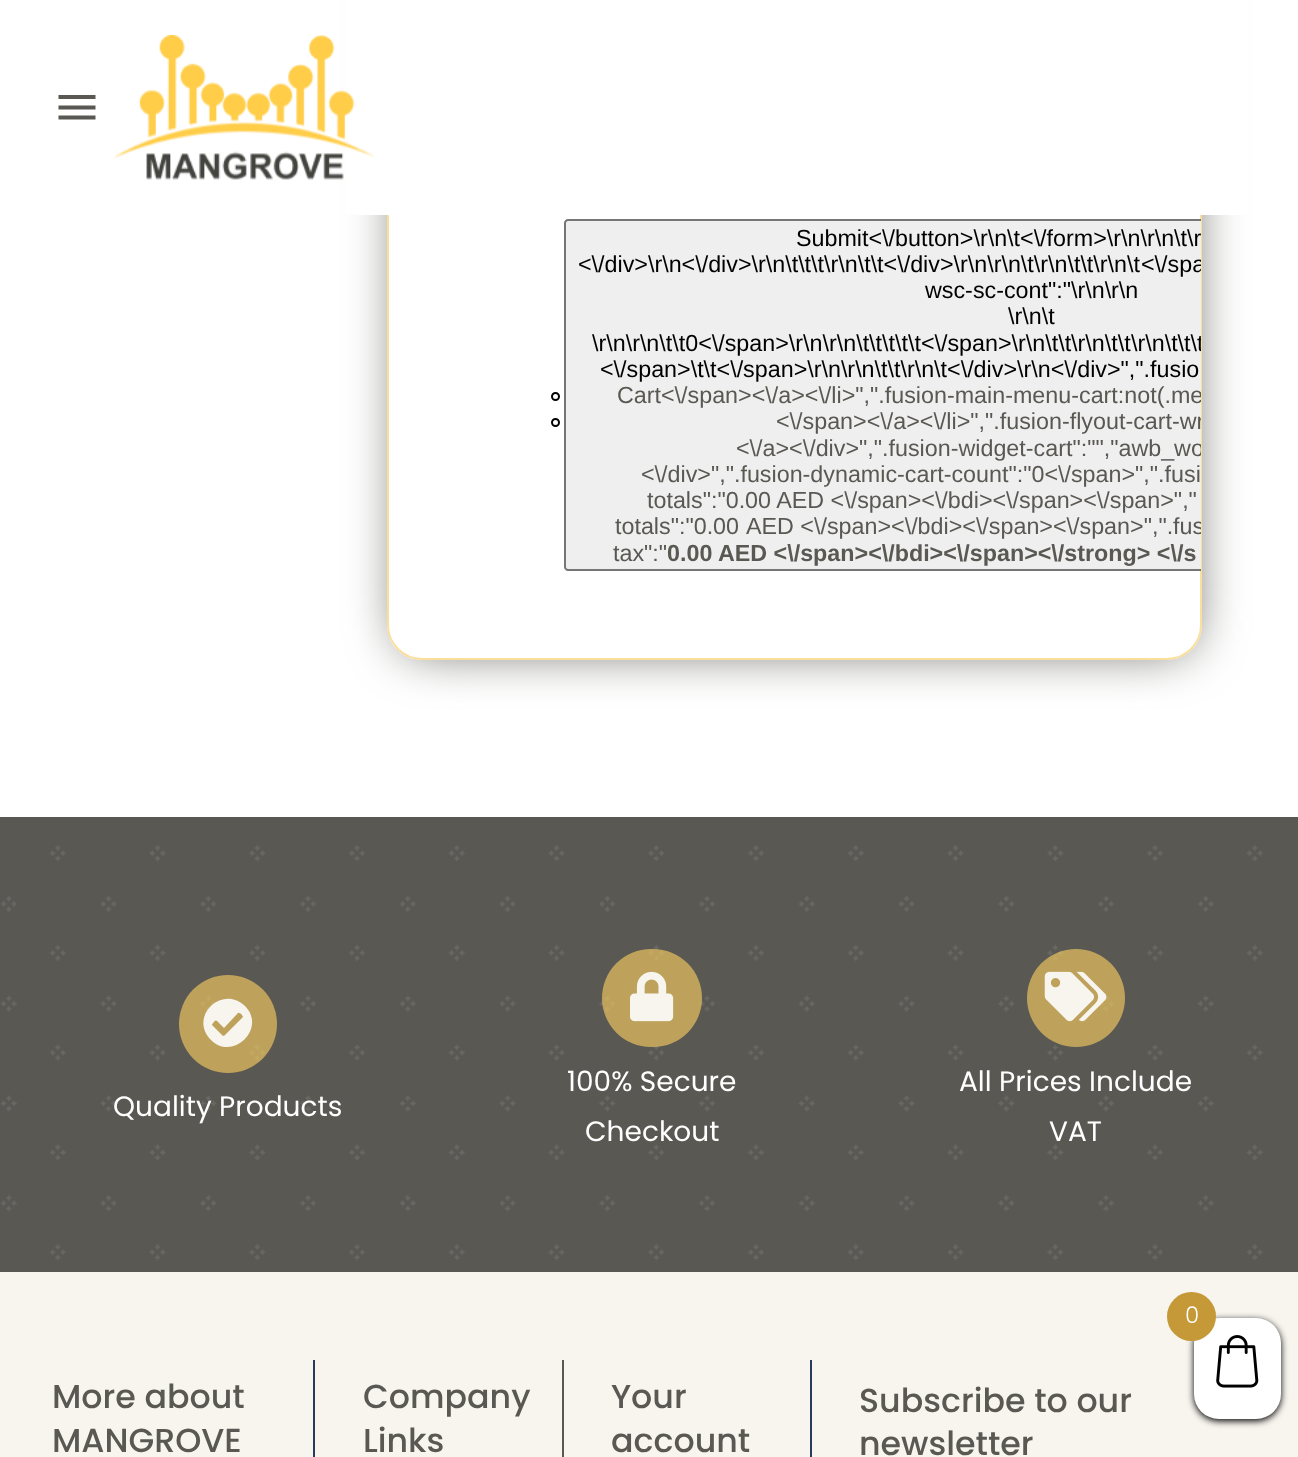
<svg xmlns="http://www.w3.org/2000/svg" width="1298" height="1457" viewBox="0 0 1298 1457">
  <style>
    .t1 { font: 23.3px Liberation Sans; fill: #000; }
    .t2 { font: 23.3px Liberation Sans; fill: #595853; }
    .t3 { font: bold 23.3px Liberation Sans; fill: #595853; }
    .t4 { font: 28px Poppins; fill: #fff; }
    .t5 { font: 500 33.25px Poppins; fill: #595853; }
    .t6 { font: 300 23px Poppins; fill: #fff; }
  </style>
  <defs>
    <clipPath id="clip1"><path d="M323 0H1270V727H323ZM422-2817H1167C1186.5-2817 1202-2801.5 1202-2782V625C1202 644.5 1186.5 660 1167 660H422C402.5 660 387 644.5 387 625V-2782C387-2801.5 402.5-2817 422-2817Z" clip-rule="evenodd"/></clipPath>
    <clipPath id="clip2"><rect x="389" y="-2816" width="812" height="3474" rx="33"/></clipPath>
  </defs>
  <rect width="100%" height="100%" fill="#fff"/>
  <g clip-path="url(#clip1)">
    <rect x="401" y="-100" width="791" height="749" rx="23" fill="#595853" filter="blur(25.5px)"/>
  </g>
  <rect x="388" y="-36" width="813" height="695" rx="34" fill="none" stroke="#f7cd61a3" stroke-width="2"/>
  <rect x="346" y="0" width="901" height="215" fill="#fff"/>
  <path d="M58.5 95H95.5V99H58.5ZM58.5 109.5V105.5H95.5V109.5ZM58.5 119.5V115.5H95.5V119.5Z" fill="#595853"/>
  <image x="114" y="35" width="261" height="145" href="images/1.png"/>
  <path d="M568 219H1201V571H568C566 571 564 569 564 567V223C564 221 566 219 568 219Z" fill="#efefef"/>
  <path d="M568 219C566 219 564 221 564 223V567C564 569 566 571 568 571H1201V569H568C567 569 566 568 566 567V223C566 222 567 221 568 221H1201V219Z" fill="#767676"/>
  <g clip-path="url(#clip2)">
    <text x="796" y="246" class="t1">Submit&lt;\/button&gt;\r\n\t&lt;\/form&gt;\r\n\r\n\t\r</text>
  </g>
  <text x="578" y="272" class="t1">&lt;\/div&gt;\r\n&lt;\/div&gt;\r\n\t\t\t\r\n\t\t&lt;\/div&gt;\r\n\r\n\t\r\n\t\t\r\n\t</text>
  <g clip-path="url(#clip2)">
    <text x="1141" y="272" class="t1">&lt;\/spa</text>
  </g>
  <text x="925" y="298" class="t1">wsc-sc-cont":"\r\n\r\n</text>
  <text x="1008" y="324" class="t1">\r\n\t</text>
  <text x="592" y="351" class="t1">\r\n\r\n\t\t0&lt;\/span&gt;\r\n\r\n\t\t\t\t\t&lt;\/span&gt;\r\n\t\t\r\n\t\t</text>
  <g clip-path="url(#clip2)">
    <text x="1131" y="351" class="t1">\r\n\t\t\t</text>
  </g>
  <text x="600" y="377" class="t1">&lt;\/span&gt;\t\t&lt;\/span&gt;\r\n\r\n\t\t\r\n\t&lt;\/div&gt;\r\n&lt;\/div&gt;",".fusio</text>
  <circle cx="555.5" cy="396.5" r="3.5" fill="none" stroke="#000" stroke-width="2"/>
  <g clip-path="url(#clip2)">
    <text x="617" y="403" class="t2">Cart&lt;\/span&gt;&lt;\/a&gt;&lt;\/li&gt;",".fusion-main-menu-cart:not(.me</text>
  </g>
  <circle cx="555.5" cy="422.5" r="3.5" fill="none" stroke="#000" stroke-width="2"/>
  <g clip-path="url(#clip2)">
    <text x="776" y="429" class="t2">&lt;\/span&gt;&lt;\/a&gt;&lt;\/li&gt;",".fusion-flyout-cart-wr</text>
    <text x="736" y="456" class="t2">&lt;\/a&gt;&lt;\/div&gt;",".fusion-widget-cart":"","awb_wo</text>
  </g>
  <text x="641" y="482" class="t2">&lt;\/div&gt;",".fusion-dynamic-cart-count":"0&lt;\/span&gt;",".fusi</text>
  <text x="647" y="508" class="t2">totals":"0.00 AED &lt;\/span&gt;&lt;\/bdi&gt;&lt;\/span&gt;&lt;\/span&gt;","</text>
  <text x="615" y="534" class="t2">totals":"0.00</text>
  <g clip-path="url(#clip2)">
    <text x="746" y="534" class="t2">AED &lt;\/span&gt;&lt;\/bdi&gt;&lt;\/span&gt;&lt;\/span&gt;",".fus</text>
  </g>
  <text x="613" y="561" class="t2">tax":"</text>
  <text x="667" y="561" class="t3">0.00 AED &lt;\/span&gt;&lt;\/bdi&gt;&lt;\/span&gt;&lt;\/strong&gt; &lt;\/s</text>
  <rect x="0" y="817" width="1298" height="455" fill="#595853"/>
  <image x="0" y="845" width="1298" height="416" href="images/2.png"/>
  <circle cx="228" cy="1024" r="49" fill="#f7cd61a3"/>
  <path d="M245 1006C267 1028 233 1062 211 1040C188 1017 222 984 245 1006ZM225 1035L243 1017C243 1016 240 1012 238 1013L224 1028L219 1023C217 1021 216 1019 214 1022C213 1023 212 1024 212 1025L221 1034C222 1035 223 1037 225 1035Z" fill="#f8f5ef"/>
  <text x="113" y="1116" class="t4">Quality Products</text>
  <rect x="602" y="949" width="100" height="98" rx="49" fill="#f7cd61a3"/>
  <image x="630" y="971" width="44" height="51" href="images/3.png"/>
  <text x="567" y="1091" class="t4">100% Secure</text>
  <text x="585" y="1141" class="t4">Checkout</text>
  <circle cx="1076" cy="998" r="49" fill="#f7cd61a3"/>
  <image x="1044" y="971" width="63" height="51" href="images/4.png"/>
  <text x="959" y="1091" class="t4">All Prices Include</text>
  <text x="1049" y="1141" class="t4">VAT</text>
  <rect x="0" y="1272" width="1298" height="185" fill="#f8f5ef"/>
  <rect x="313" y="1360" width="2" height="97" fill="#273b5e"/>
  <text x="52" y="1408" class="t5">More about</text>
  <text x="52" y="1452" class="t5">MANGROVE</text>
  <rect x="562" y="1360" width="2" height="97" fill="#595853"/>
  <text x="363" y="1408" class="t5">Company</text>
  <text x="363" y="1452" class="t5">Links</text>
  <rect x="810" y="1360" width="2" height="97" fill="#273b5e"/>
  <text x="611" y="1408" class="t5">Your</text>
  <text x="611" y="1452" class="t5">account</text>
  <text x="859" y="1412" class="t5">Subscribe to our</text>
  <text x="859" y="1455" class="t5">newsletter</text>
  <rect x="1194" y="1320" width="87" height="101" rx="25" fill="#000" filter="blur(3.5px)"/>
  <rect x="1194" y="1318" width="87" height="101" rx="25" fill="#fff"/>
  <circle cx="1191.5" cy="1316.5" r="24.5" fill="#c59938"/>
  <text x="1185" y="1323" class="t6">0</text>
  <image x="1216" y="1335" width="43" height="53" href="images/5.png"/>
</svg>
